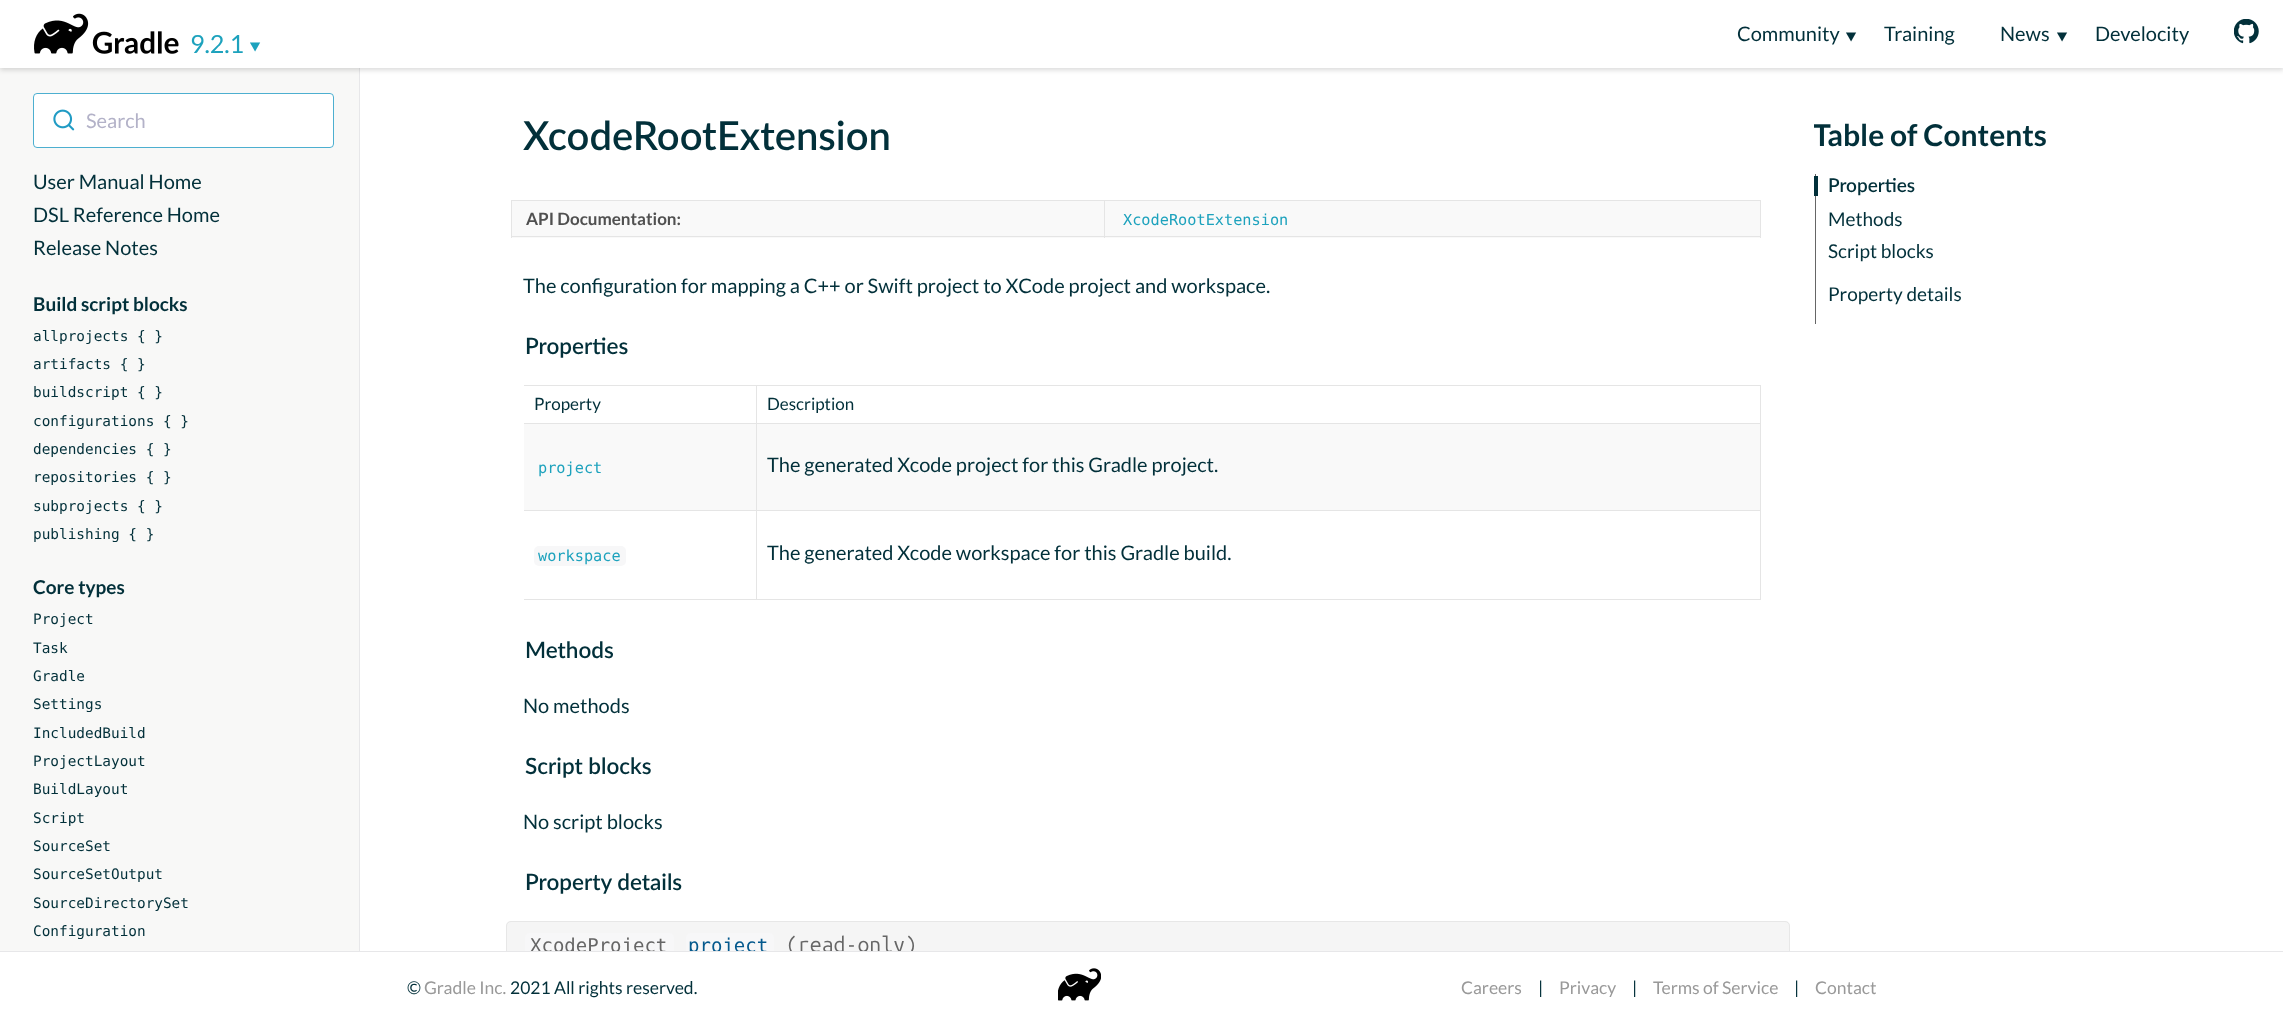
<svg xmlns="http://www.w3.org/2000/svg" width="2283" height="1022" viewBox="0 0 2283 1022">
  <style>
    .t1 { font: 25px Lato; fill: #1da2bd; }
    .t2 { font: 35px Noto Sans; fill: #1da2bd; }
    .t3 { font: 20px Lato; fill: #02303a; }
    .t4 { font: 35px Noto Sans; fill: #02303a; }
    .t5 { font: 20px Lato; fill: #b3b2c8; }
    .t6 { font: bold 19px Lato; fill: #02303a; }
    .t7 { font: 14.4px DejaVu Sans Mono; fill: #02303a; }
    .t8 { font: 600 40px Lato; fill: #02303a; }
    .t9 { font: bold 30px Lato; fill: #02303a; }
    .t10 { font: 600 19px Lato; fill: #02303a; }
    .t11 { font: 19px Lato; fill: #02303a; }
    .t12 { font: bold 17px Lato; fill: #505050; }
    .t13 { font: 15.25px DejaVu Sans Mono; fill: #1da2bd; }
    .t14 { font: 600 22.5px Lato; fill: #02303a; }
    .t15 { font: 17px Lato; fill: #02303a; }
    .t16 { font: 19px DejaVu Sans Mono; fill: #666; }
    .t17 { font: 19px DejaVu Sans Mono; fill: #04598d; }
    .t18 { font: 21.25px Ubuntu Mono; fill: #666; }
    .t19 { font: 17.5px Lato; fill: #02303a; }
    .t20 { font: 17.5px Lato; fill: #999; }
  </style>
  <defs>
    <clipPath id="clip1"><path d="M1814 81H2139V318C2139 321.5 2136.5 324 2133 324H1814Z"/></clipPath>
    <clipPath id="clip2"><rect x="360" y="68" width="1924" height="883"/></clipPath>
  </defs>
  <rect width="100%" height="100%" fill="#fff"/>
  <rect x="0" y="68" width="359" height="883" fill="#f8f8f7"/>
  <rect x="359" y="68" width="1" height="883" fill="#e7e7e9"/>
  <rect x="0" y="3" width="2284" height="67" fill="#00000026" filter="blur(2.5px)"/>
  <rect x="0" y="0" width="2283" height="68" fill="#fff"/>
  <image x="34" y="13" width="145" height="41" href="images/1.png"/>
  <text x="190" y="53" class="t1">9.2.1</text>
  <text x="242" y="40" transform="rotate(90 242 40)" class="t2">‣</text>
  <text x="1737" y="41" class="t3">Community</text>
  <text x="1838" y="30" transform="rotate(90 1838 30)" class="t4">‣</text>
  <text x="1884" y="41" class="t3">Training</text>
  <text x="2000" y="41" class="t3">News</text>
  <text x="2049" y="30" transform="rotate(90 2049 30)" class="t4">‣</text>
  <text x="2095" y="41" class="t3">Develocity</text>
  <image x="2234" y="19" width="25" height="25" href="images/2.png"/>
  <rect x="33" y="93" width="301" height="55" rx="4" fill="#fff"/>
  <rect x="33.5" y="93.5" width="300" height="54" rx="3.5" fill="none" stroke="#209bc4cc"/>
  <image x="53" y="109" width="22" height="22" href="images/3.png"/>
  <text x="86" y="128" class="t5">Search</text>
  <text x="33" y="189" class="t3">User Manual Home</text>
  <text x="33" y="222" class="t3">DSL Reference Home</text>
  <text x="33" y="255" class="t3">Release Notes</text>
  <text x="33" y="311" class="t6">Build script blocks</text>
  <text x="33" y="341" class="t7">allprojects { }</text>
  <text x="33" y="369" class="t7">artifacts { }</text>
  <text x="33" y="397" class="t7">buildscript { }</text>
  <text x="33" y="426" class="t7">configurations { }</text>
  <text x="33" y="454" class="t7">dependencies { }</text>
  <text x="33" y="482" class="t7">repositories { }</text>
  <text x="33" y="511" class="t7">subprojects { }</text>
  <text x="33" y="539" class="t7">publishing { }</text>
  <text x="33" y="594" class="t6">Core types</text>
  <text x="33" y="624" class="t7">Project</text>
  <text x="33" y="653" class="t7">Task</text>
  <text x="33" y="681" class="t7">Gradle</text>
  <text x="33" y="709" class="t7">Settings</text>
  <text x="33" y="738" class="t7">IncludedBuild</text>
  <text x="33" y="766" class="t7">ProjectLayout</text>
  <text x="33" y="794" class="t7">BuildLayout</text>
  <text x="33" y="823" class="t7">Script</text>
  <text x="33" y="851" class="t7">SourceSet</text>
  <text x="33" y="879" class="t7">SourceSetOutput</text>
  <text x="33" y="908" class="t7">SourceDirectorySet</text>
  <text x="33" y="936" class="t7">Configuration</text>
  <text x="523" y="150" class="t8">XcodeRootExtension</text>
  <g clip-path="url(#clip1)">
    <text x="1813" y="146" class="t9">Table of Contents</text>
  </g>
  <rect x="1815" y="174" width="1" height="150" fill="#666"/>
  <rect x="1814" y="176" width="4" height="20" fill="#01303a"/>
  <text x="1828" y="192" class="t10">Properties</text>
  <text x="1828" y="226" class="t11">Methods</text>
  <text x="1828" y="258" class="t11">Script blocks</text>
  <text x="1828" y="301" class="t11">Property details</text>
  <rect x="512" y="201" width="592" height="37" fill="#f9f9f9"/>
  <rect x="1104" y="200" width="657" height="1" fill="#e5e5e5"/>
  <rect x="1105" y="201" width="655" height="37" fill="#f9f9f9"/>
  <rect x="1760" y="200" width="1" height="38" fill="#e5e5e5"/>
  <rect x="1104" y="236" width="657" height="1" fill="#e5e5e5"/>
  <rect x="1104" y="200" width="1" height="38" fill="#e5e5e5"/>
  <rect x="511" y="200" width="594" height="1" fill="#e5e5e5"/>
  <rect x="511" y="236" width="594" height="1" fill="#e5e5e5"/>
  <rect x="511" y="200" width="1" height="38" fill="#e5e5e5"/>
  <text x="526" y="225" class="t12">API Documentation:</text>
  <text x="1123" y="225" class="t13">XcodeRootExtension</text>
  <text x="523" y="293" class="t3">The configuration for mapping a C++ or Swift project to XCode project and workspace.</text>
  <text x="525" y="354" class="t14">Properties</text>
  <rect x="756" y="385" width="1005" height="1" fill="#e5e5e5"/>
  <rect x="756" y="423" width="1005" height="1" fill="#e5e5e5"/>
  <rect x="756" y="510" width="1005" height="1" fill="#e5e5e5"/>
  <rect x="1760" y="510" width="1" height="90" fill="#e5e5e5"/>
  <rect x="756" y="599" width="1005" height="1" fill="#e5e5e5"/>
  <rect x="756" y="510" width="1" height="90" fill="#e5e5e5"/>
  <rect x="524" y="510" width="234" height="1" fill="#e5e5e5"/>
  <rect x="756" y="423" width="1" height="88" fill="#e5e5e5"/>
  <rect x="524" y="423" width="234" height="1" fill="#e5e5e5"/>
  <rect x="756" y="385" width="1" height="39" fill="#e5e5e5"/>
  <rect x="524" y="385" width="234" height="1" fill="#e5e5e5"/>
  <text x="534" y="410" class="t15">Property</text>
  <rect x="1760" y="423" width="1" height="88" fill="#e5e5e5"/>
  <rect x="1760" y="385" width="1" height="39" fill="#e5e5e5"/>
  <text x="767" y="410" class="t15">Description</text>
  <rect x="524" y="424" width="232" height="86" fill="#f9f9f9"/>
  <text x="538" y="473" class="t13">project</text>
  <rect x="757" y="424" width="1003" height="86" fill="#f9f9f9"/>
  <text x="767" y="472" class="t3">The generated Xcode project for this Gradle project.</text>
  <rect x="524" y="599" width="234" height="1" fill="#e5e5e5"/>
  <rect x="534" y="546" width="92" height="20" rx="5" fill="#f7f7f8"/>
  <text x="538" y="561" class="t13">workspace</text>
  <text x="767" y="560" class="t3">The generated Xcode workspace for this Gradle build.</text>
  <text x="525" y="658" class="t14">Methods</text>
  <text x="523" y="713" class="t3">No methods</text>
  <text x="525" y="774" class="t14">Script blocks</text>
  <text x="523" y="829" class="t3">No script blocks</text>
  <text x="525" y="890" class="t14">Property details</text>
  <path d="M511 921H1785C1788 921 1790 923 1790 926V951H506V926C506 923 508 921 511 921Z" fill="#f5f5f5"/>
  <g clip-path="url(#clip2)">
    <rect x="506.5" y="921.5" width="1283" height="47" rx="4.5" fill="none" stroke="#e7e7e7"/>
  </g>
  <path d="M530 933H669C672 933 674 935 674 938V951H525V938C525 935 527 933 530 933Z" fill="#f7f7f8"/>
  <g clip-path="url(#clip2)">
    <text x="530" y="952" class="t16">XcodeProject</text>
  </g>
  <path d="M691 933H769C772 933 774 935 774 938V951H686V938C686 935 688 933 691 933Z" fill="#f7f7f8"/>
  <g clip-path="url(#clip2)">
    <text x="688" y="952" class="t17">project</text>
    <text x="786" y="952" class="t18">(read-only)</text>
  </g>
  <rect x="0" y="951" width="2283" height="1" fill="#e7e7e9"/>
  <text x="407" y="994" class="t19">©</text>
  <text x="424" y="994" class="t20">Gradle Inc.</text>
  <text x="510" y="994" class="t19">2021 All rights reserved.</text>
  <image x="1058" y="968" width="43" height="33" href="images/4.png"/>
  <text x="1461" y="994" class="t20">Careers</text>
  <text x="1538" y="994" class="t19">|</text>
  <text x="1559" y="994" class="t20">Privacy</text>
  <text x="1632" y="994" class="t19">|</text>
  <text x="1653" y="994" class="t20">Terms of Service</text>
  <text x="1794" y="994" class="t19">|</text>
  <text x="1815" y="994" class="t20">Contact</text>
</svg>
